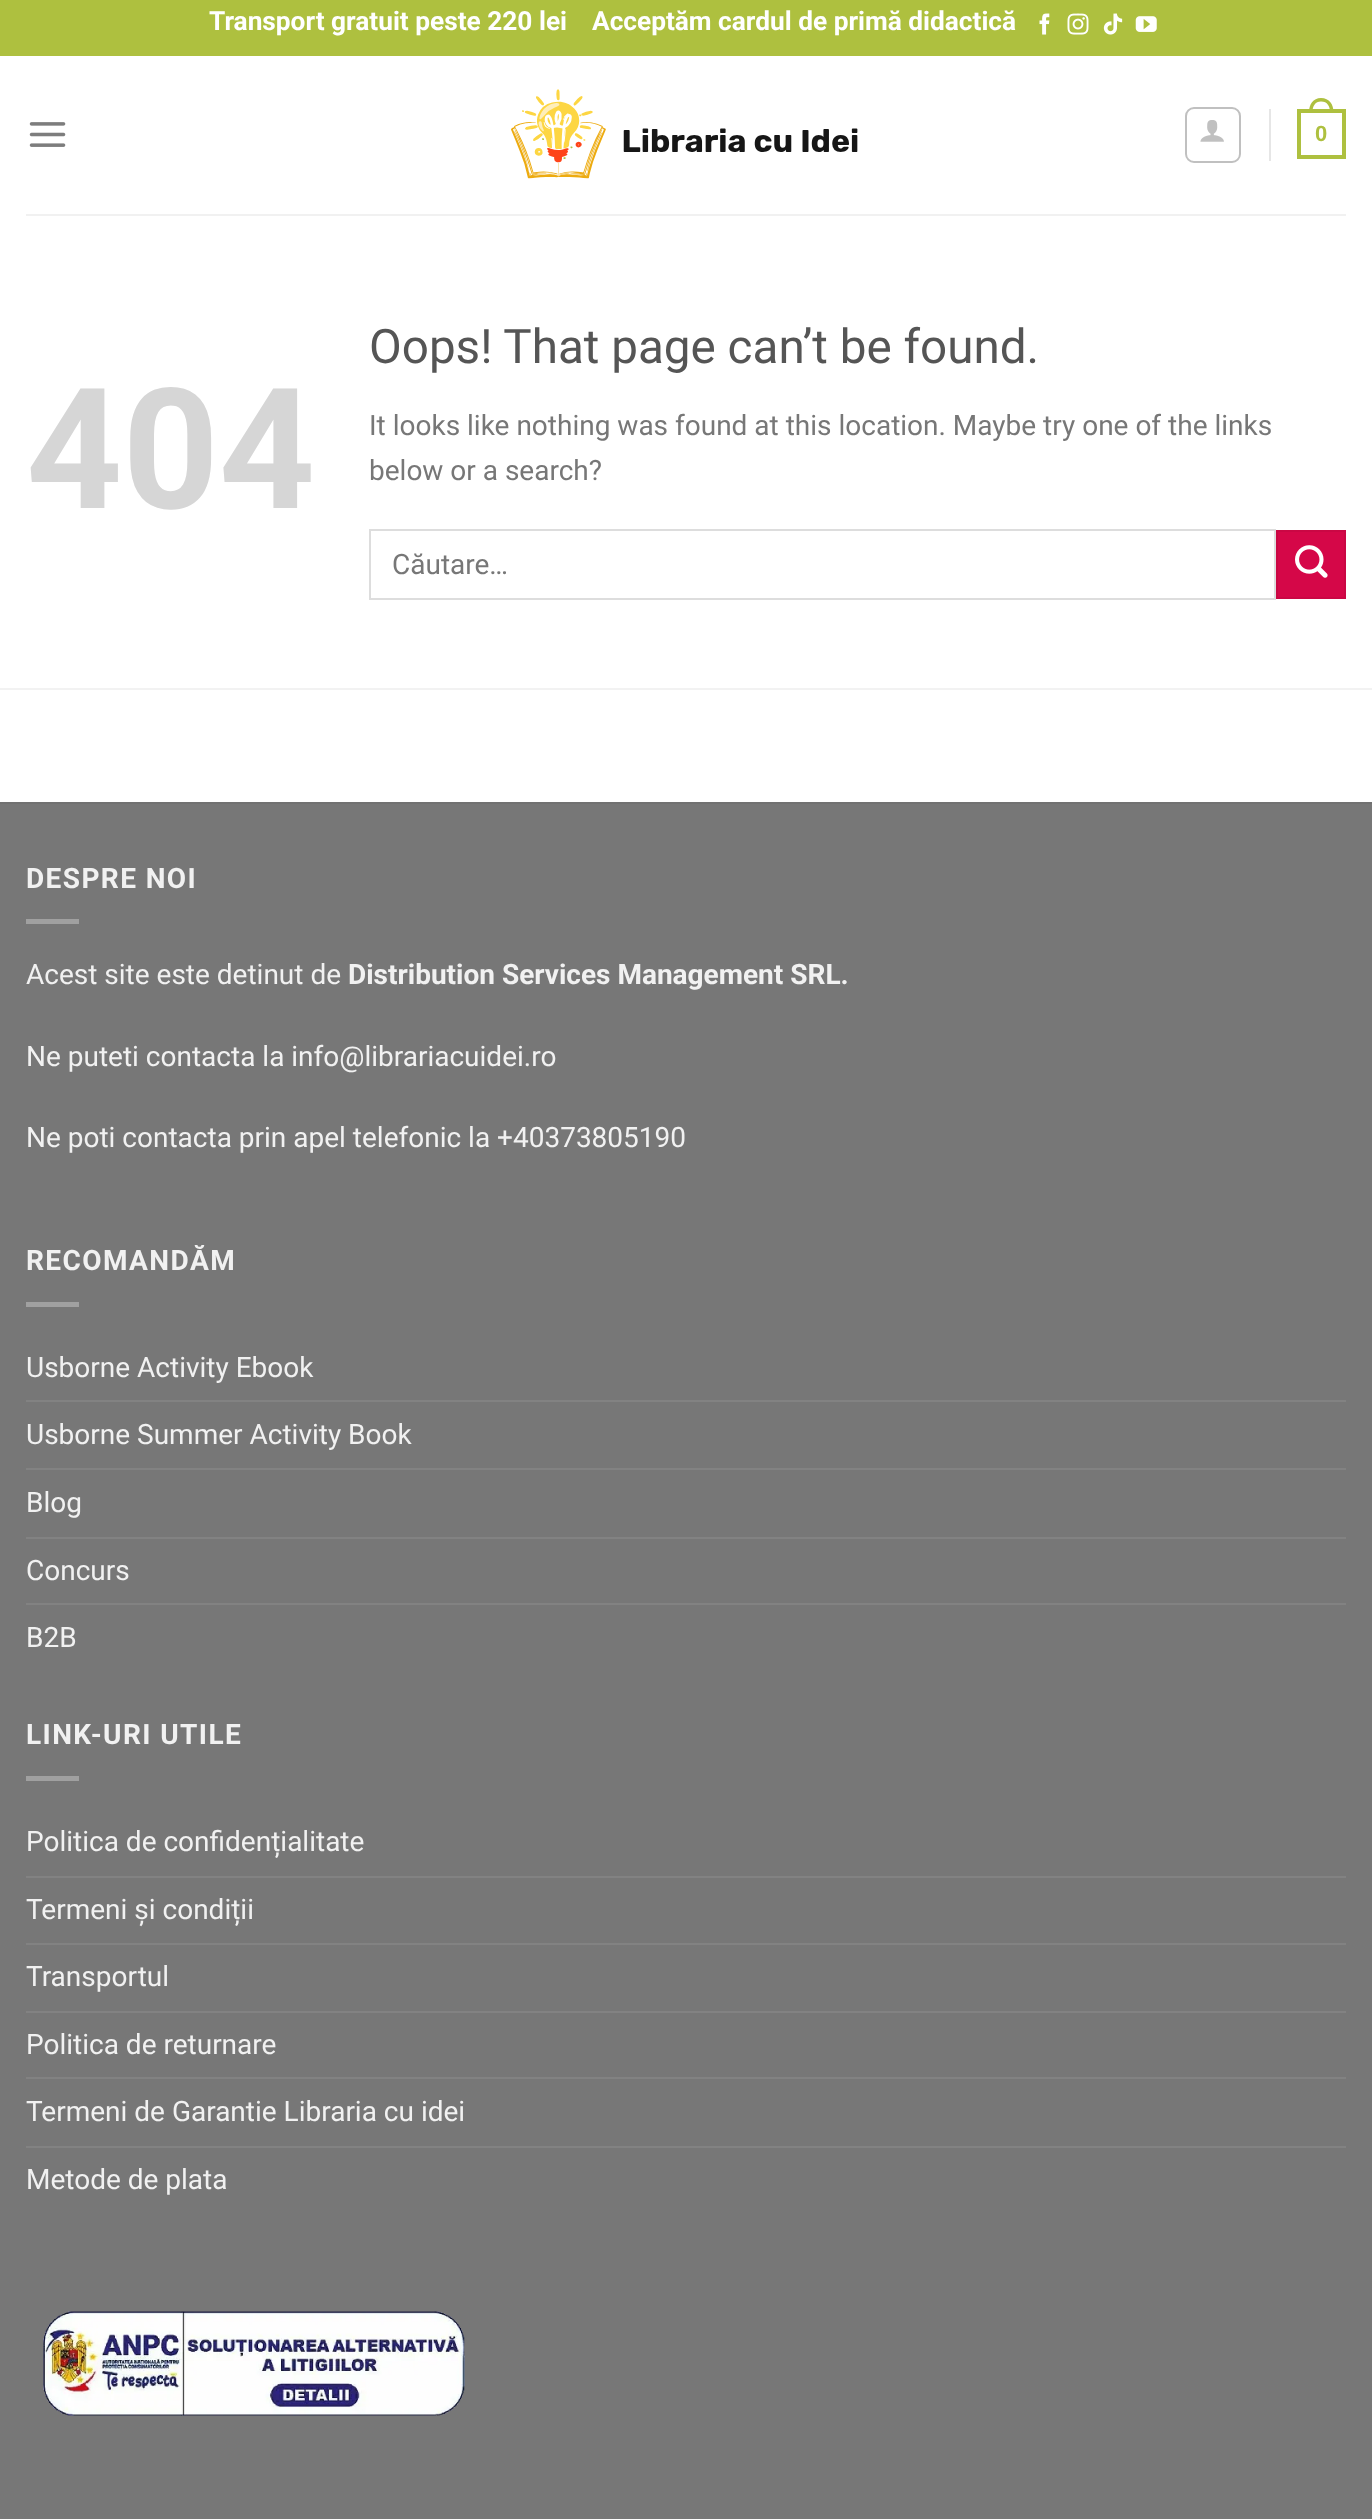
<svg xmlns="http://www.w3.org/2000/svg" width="1372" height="2519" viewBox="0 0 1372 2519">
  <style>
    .t1 { font: bold 26.25px Roboto; fill: #fff; }
    .t2 { font: bold 22px Liberation Sans; fill: #aec03f; }
    .t3 { font: bold 168px Roboto; fill: #d6d6d6; }
    .t4 { font: 47.6px Roboto; fill: #555; }
    .t5 { font: 28px Roboto; fill: #777; }
    .t6 { font: bold 28px Roboto; letter-spacing: 1.4px; fill: #f1f1f1; }
    .t7 { font: 28px Roboto; fill: #f1f1f1; }
    .t8 { font: bold 28px Roboto; fill: #f1f1f1; }
  </style>
  <rect width="100%" height="100%" fill="#fff"/>
  <rect x="0" y="0" width="1372" height="56" fill="#aec03f"/>
  <text x="209" y="30" class="t1">Transport gratuit peste 220 lei</text>
  <text x="592" y="30" class="t1">Acceptăm cardul de primă didactică</text>
  <image x="1039" y="13" width="11" height="22" href="images/1.png"/>
  <image x="1067" y="13" width="22" height="22" href="images/2.png"/>
  <image x="1103" y="13" width="20" height="22" href="images/3.png"/>
  <image x="1135" y="16" width="22" height="16" href="images/4.png"/>
  <image x="29" y="122" width="37" height="25" href="images/5.png"/>
  <image x="511" y="89" width="347" height="90" href="images/6.png"/>
  <rect x="1186" y="108" width="54" height="54" rx="8" fill="none" stroke="#c0c0c0" stroke-width="2"/>
  <image x="1200" y="120" width="24" height="22" href="images/7.png"/>
  <rect x="1269" y="109" width="2" height="52" fill="#e6e6e6"/>
  <rect x="1299" y="111" width="45" height="46" fill="none" stroke="#aec03f" stroke-width="4"/>
  <path d="M1321 98C1329.5 98 1333.5 104.5 1333.5 112H1309C1309 104.5 1313 98 1321 98ZM1321 101.5C1327.5 101.5 1330 106.5 1330 112H1312.5C1312.5 106.5 1315 101.5 1321 101.5Z" fill="#aec03f" fill-rule="evenodd"/>
  <text x="1315" y="141" class="t2">0</text>
  <rect x="26" y="214" width="1320" height="2" fill="#f1f1f1"/>
  <text x="26" y="508" class="t3">404</text>
  <text x="369" y="363" class="t4">Oops! That page can’t be found.</text>
  <text x="369" y="435" class="t5">It looks like nothing was found at this location. Maybe try one of the links</text>
  <text x="369" y="480" class="t5">below or a search?</text>
  <rect x="370" y="530" width="905" height="69" fill="none" stroke="#ddd" stroke-width="2"/>
  <text x="392" y="574" class="t5">Căutare…</text>
  <rect x="1277" y="531" width="68" height="67" fill="#d50748" stroke="#ca0744" stroke-width="2"/>
  <image x="1295" y="545" width="33" height="33" href="images/8.png"/>
  <rect x="0" y="688" width="1372" height="2" fill="#f2f2f2"/>
  <rect x="0" y="804" width="1372" height="1715" fill="#777"/>
  <rect x="0" y="802" width="1372" height="2" fill="#717171"/>
  <text x="26" y="888" class="t6">DESPRE NOI</text>
  <rect x="26" y="919" width="53" height="5" fill="#a0a0a0"/>
  <text x="26" y="984" class="t7">Acest site este detinut de</text>
  <text x="348" y="984" class="t8">Distribution Services Management SRL.</text>
  <text x="26" y="1066" class="t7">Ne puteti contacta la info@librariacuidei.ro</text>
  <text x="26" y="1147" class="t7">Ne poti contacta prin apel telefonic la +40373805190</text>
  <text x="26" y="1270" class="t6">RECOMANDĂM</text>
  <rect x="26" y="1302" width="53" height="5" fill="#a0a0a0"/>
  <text x="26" y="1377" class="t7">Usborne Activity Ebook</text>
  <rect x="26" y="1400" width="1320" height="2" fill="#828282"/>
  <text x="26" y="1444" class="t7">Usborne Summer Activity Book</text>
  <rect x="26" y="1468" width="1320" height="2" fill="#828282"/>
  <text x="26" y="1512" class="t7">Blog</text>
  <rect x="26" y="1537" width="1320" height="2" fill="#828282"/>
  <text x="26" y="1580" class="t7">Concurs</text>
  <rect x="26" y="1603" width="1320" height="2" fill="#828282"/>
  <text x="26" y="1647" class="t7">B2B</text>
  <text x="26" y="1744" class="t6">LINK-URI UTILE</text>
  <rect x="26" y="1776" width="53" height="5" fill="#a0a0a0"/>
  <text x="26" y="1851" class="t7">Politica de confidențialitate</text>
  <rect x="26" y="1876" width="1320" height="2" fill="#828282"/>
  <text x="26" y="1919" class="t7">Termeni și condiții</text>
  <rect x="26" y="1943" width="1320" height="2" fill="#828282"/>
  <text x="26" y="1986" class="t7">Transportul</text>
  <rect x="26" y="2011" width="1320" height="2" fill="#828282"/>
  <text x="26" y="2054" class="t7">Politica de returnare</text>
  <rect x="26" y="2077" width="1320" height="2" fill="#828282"/>
  <text x="26" y="2121" class="t7">Termeni de Garantie Libraria cu idei</text>
  <rect x="26" y="2146" width="1320" height="2" fill="#828282"/>
  <text x="26" y="2189" class="t7">Metode de plata</text>
  <image x="43" y="2311" width="422" height="105" href="images/9.png"/>
</svg>
